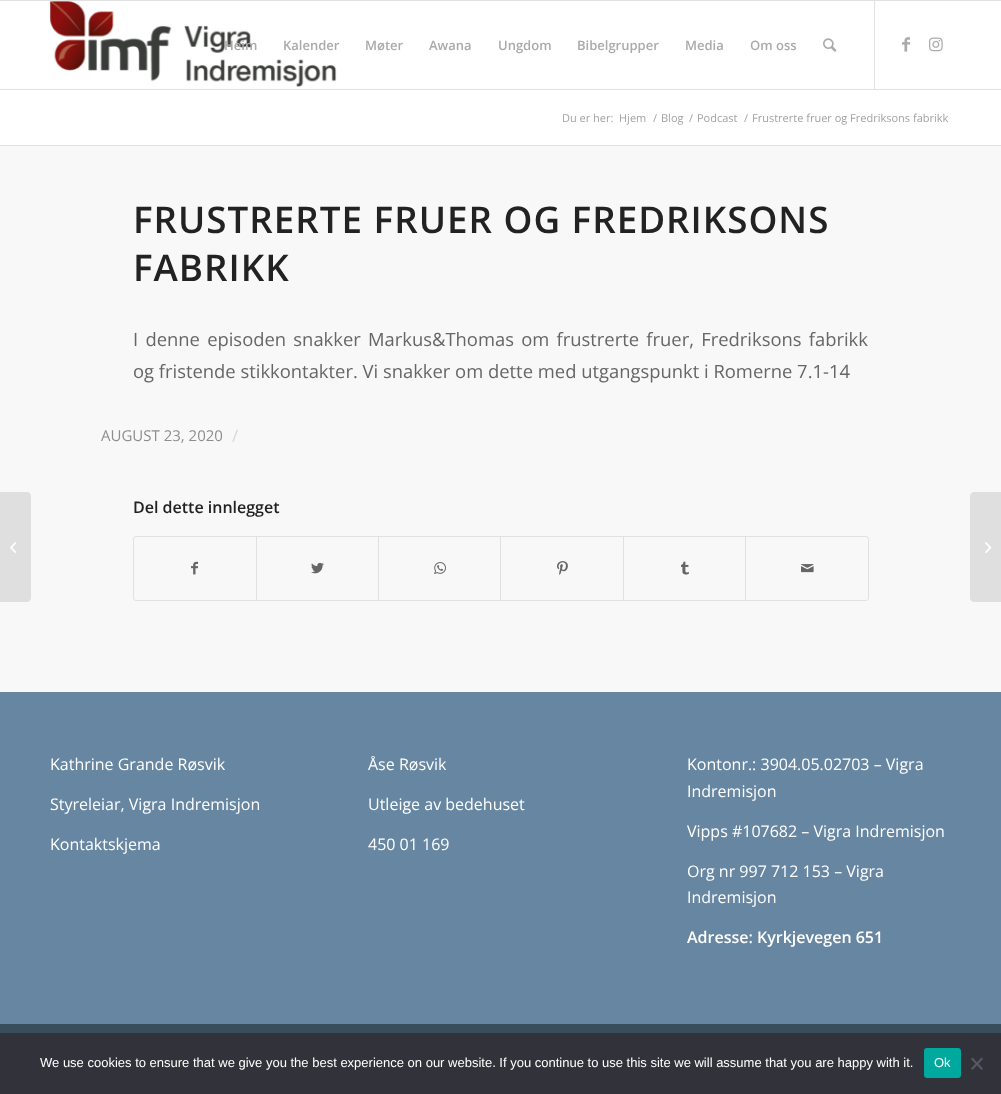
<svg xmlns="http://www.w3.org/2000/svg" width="1001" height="1094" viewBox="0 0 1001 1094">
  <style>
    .t1 { font: 600 13px Open Sans; fill: #aaa; }
    .t2 { font: 11px Open Sans; fill: #a2a2a2; }
    .t3 { font: 600 36.75px Open Sans; letter-spacing: 1px; fill: #222; }
    .t4 { font: 18.4px Open Sans; fill: #666; }
    .t5 { font: 15px Open Sans; fill: #8d8d8d; }
    .t6 { font: 17px Open Sans; fill: #d8d8d8; }
    .t7 { font: 600 16px Open Sans; fill: #222; }
    .t8 { font: 16px Open Sans; fill: #fff; }
    .t9 { font: 600 16px Open Sans; fill: #fff; }
    .t10 { font: 13px Liberation Sans; fill: #fff; }
  </style>
  <rect width="100%" height="100%" fill="#3a4d5c"/>
  <rect x="0" y="0" width="1001" height="1" fill="#e1e1e1"/>
  <rect x="0" y="89" width="1001" height="1" fill="#e1e1e1"/>
  <rect x="0" y="1" width="1001" height="87" fill="#fff"/>
  <image x="50" y="1" width="287" height="87" href="images/1.png"/>
  <rect x="0" y="88" width="1001" height="1" fill="#fefefe"/>
  <rect x="874" y="1" width="1" height="88" fill="#e1e1e1"/>
  <text x="224" y="50" class="t1">Heim</text>
  <text x="283" y="50" class="t1">Kalender</text>
  <text x="365" y="50" class="t1">Møter</text>
  <text x="429" y="50" class="t1">Awana</text>
  <text x="498" y="50" class="t1">Ungdom</text>
  <text x="577" y="50" class="t1">Bibelgrupper</text>
  <text x="685" y="50" class="t1">Media</text>
  <text x="750" y="50" class="t1">Om oss</text>
  <image x="823" y="38" width="14" height="14" href="images/2.png"/>
  <image x="902" y="37" width="8" height="15" href="images/3.png"/>
  <image x="929" y="37" width="14" height="15" href="images/4.png"/>
  <rect x="0" y="146" width="1001" height="546" fill="#f8f8f8"/>
  <path d="M0 492H27C29 492 31 494 31 496V598C31 600 29 602 27 602H0Z" fill="#dfdfdf"/>
  <image x="10" y="542" width="7" height="11" href="images/5.png"/>
  <rect x="0" y="90" width="1001" height="55" fill="#fff"/>
  <text x="562" y="122" class="t2">Du er her:</text>
  <text x="619" y="122" class="t2">Hjem</text>
  <text x="653" y="122" class="t2">/</text>
  <text x="661" y="122" class="t2">Blog</text>
  <text x="689" y="122" class="t2">/</text>
  <text x="697" y="122" class="t2">Podcast</text>
  <text x="744" y="122" class="t2">/</text>
  <text x="752" y="122" class="t2">Frustrerte fruer og Fredriksons fabrikk</text>
  <rect x="0" y="145" width="1001" height="1" fill="#e1e1e1"/>
  <text x="133" y="233" class="t3">FRUSTRERTE FRUER OG FREDRIKSONS</text>
  <text x="133" y="281" class="t3">FABRIKK</text>
  <text x="133" y="346" word-spacing="2.5" class="t4">I denne episoden snakker Markus&amp;Thomas om frustrerte fruer, Fredriksons fabrikk</text>
  <text x="133" y="378" class="t4">og fristende stikkontakter. Vi snakker om dette med utgangspunkt i Romerne 7.1-14</text>
  <text x="101" y="441" class="t5">AUGUST 23, 2020</text>
  <text x="232" y="442" class="t6">/</text>
  <text x="133" y="513" class="t7">Del dette innlegget</text>
  <rect x="133.5" y="536.5" width="735" height="64" rx="2.5" fill="none" stroke="#e1e1e1"/>
  <image x="191" y="561" width="7" height="14" href="images/6.png"/>
  <rect x="256" y="537" width="1" height="63" fill="#e1e1e1"/>
  <image x="311" y="562" width="13" height="12" href="images/7.png"/>
  <rect x="378" y="537" width="1" height="63" fill="#e1e1e1"/>
  <image x="434" y="562" width="12" height="13" href="images/8.png"/>
  <rect x="500" y="537" width="1" height="63" fill="#e1e1e1"/>
  <image x="557" y="561" width="11" height="14" href="images/9.png"/>
  <rect x="623" y="537" width="1" height="63" fill="#e1e1e1"/>
  <image x="681" y="561" width="8" height="14" href="images/10.png"/>
  <rect x="745" y="537" width="1" height="63" fill="#e1e1e1"/>
  <image x="801" y="564" width="13" height="9" href="images/11.png"/>
  <rect x="0" y="692" width="1001" height="332" fill="#6786a1"/>
  <text x="50" y="770" class="t8">Kathrine Grande Røsvik</text>
  <text x="50" y="810" class="t8">Styreleiar, Vigra Indremisjon</text>
  <text x="50" y="850" class="t8">Kontaktskjema</text>
  <text x="368" y="770" class="t8">Åse Røsvik</text>
  <text x="368" y="810" class="t8">Utleige av bedehuset</text>
  <text x="368" y="850" class="t8">450 01 169</text>
  <text x="687" y="770" class="t8">Kontonr.: 3904.05.02703 – Vigra</text>
  <text x="687" y="797" class="t8">Indremisjon</text>
  <text x="687" y="837" class="t8">Vipps #107682 – Vigra Indremisjon</text>
  <text x="687" y="877" class="t8">Org nr 997 712 153 – Vigra</text>
  <text x="687" y="903" class="t8">Indremisjon</text>
  <text x="687" y="943" class="t9">Adresse: Kyrkjevegen 651</text>
  <path d="M974 492H1001V602H974C972 602 970 600 970 598V496C970 494 972 492 974 492Z" fill="#dfdfdf"/>
  <image x="985" y="542" width="7" height="11" href="images/12.png"/>
  <rect x="0" y="1033" width="1001" height="61" fill="#32323a"/>
  <text x="40" y="1067" class="t10">We use cookies to ensure that we give you the best experience on our website. If you continue to use this site we will assume that you are happy with it.</text>
  <rect x="924" y="1048" width="37" height="30" rx="3" fill="#00a99d"/>
  <text x="934" y="1067" class="t10">Ok</text>
  <path d="M981.5 1057.5L983 1059L972.5 1070L971 1068.5Z" fill="#59595d"/>
  <path d="M971 1059L972.5 1057.5L983 1068.5L981.5 1070Z" fill="#59595d"/>
</svg>
